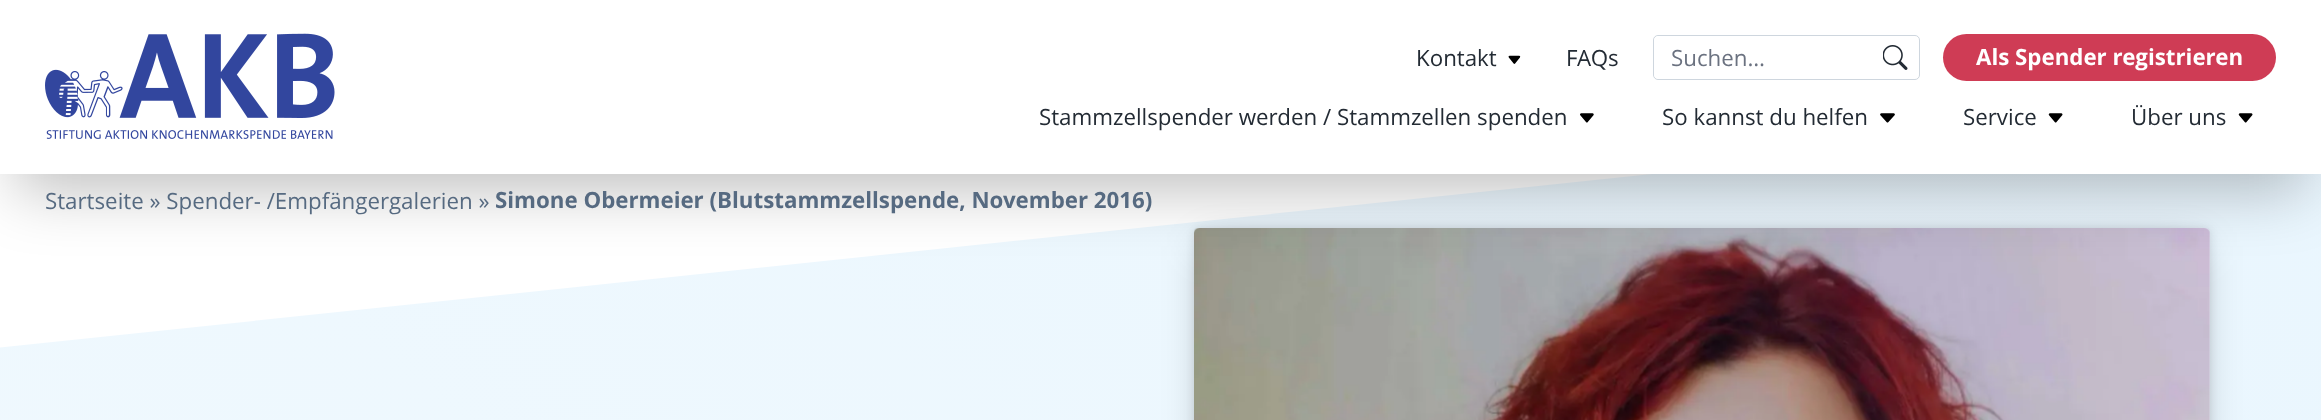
<svg xmlns="http://www.w3.org/2000/svg" width="2321" height="420" viewBox="0 0 2321 420">
  <style>
    .t1 { font: 22.3px Open Sans; fill: #232b34; }
    .t2 { font: 22.3px Open Sans; fill: #6b7280; }
    .t3 { font: bold 22.3px Open Sans; fill: #fff; }
    .t4 { font: 22.3px Open Sans; fill: #566a81; }
    .t5 { font: bold 22.3px Open Sans; fill: #566a81; }
  </style>
  <defs>
    <linearGradient id="g1" gradientUnits="userSpaceOnUse" x1="-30" y1="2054" x2="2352" y2="-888"><stop offset="0" stop-color="#f3fafe"/><stop offset="1" stop-color="#e7f5fe"/></linearGradient>
    <clipPath id="clip1"><path d="M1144 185H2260V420H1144ZM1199 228H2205C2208 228 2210 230 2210 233V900C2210 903 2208 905 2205 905H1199C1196 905 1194 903 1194 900V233C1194 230 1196 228 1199 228Z" clip-rule="evenodd"/></clipPath>
    <clipPath id="clip2"><path d="M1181 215H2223V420H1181ZM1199 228H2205C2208 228 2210 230 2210 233V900C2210 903 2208 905 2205 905H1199C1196 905 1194 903 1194 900V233C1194 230 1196 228 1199 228Z" clip-rule="evenodd"/></clipPath>
  </defs>
  <rect width="100%" height="100%" fill="#fff"/>
  <path d="M-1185 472L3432-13L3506 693L-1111 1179Z" fill="url(#g1)"/>
  <g clip-path="url(#clip1)">
    <rect x="1205" y="246" width="994" height="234" fill="#00000040" filter="blur(20px)"/>
  </g>
  <g clip-path="url(#clip2)">
    <rect x="1194" y="228" width="1016" height="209" rx="5" fill="#0000001a" filter="blur(4px)"/>
  </g>
  <image x="1194" y="228" width="1016" height="192" href="images/7.png"/>
  <rect x="15" y="46" width="2291" height="144" fill="#00000040" filter="blur(31px)"/>
  <rect x="0" y="0" width="2321" height="174" fill="#fff"/>
  <image x="45" y="33" width="290" height="106" href="images/1.png"/>
  <text x="1416" y="66" class="t1">Kontakt</text>
  <image x="1508" y="55" width="13" height="9" href="images/2.png"/>
  <text x="1566" y="66" class="t1">FAQs</text>
  <rect x="1653.5" y="35.5" width="266" height="44" rx="4.5" fill="none" stroke="#ced6de"/>
  <rect x="1654" y="36" width="217" height="43" rx="5" fill="#fff"/>
  <text x="1671" y="66" class="t2">Suchen…</text>
  <image x="1883" y="45" width="25" height="25" href="images/3.png"/>
  <rect x="1943" y="34" width="333" height="47" rx="23.5" fill="#cf3c55"/>
  <text x="1976" y="65" class="t3">Als Spender registrieren</text>
  <text x="1039" y="125" class="t1">Stammzellspender werden / Stammzellen spenden</text>
  <image x="1580" y="113" width="14" height="10" href="images/4.png"/>
  <text x="1662" y="125" class="t1">So kannst du helfen</text>
  <image x="1880" y="113" width="15" height="10" href="images/5.png"/>
  <text x="1963" y="125" class="t1">Service</text>
  <image x="2048" y="113" width="15" height="10" href="images/6.png"/>
  <text x="2131" y="125" class="t1">Über uns</text>
  <image x="2238" y="113" width="15" height="10" href="images/6.png"/>
  <text x="45" y="209" class="t4">Startseite » Spender- /Empfängergalerien »</text>
  <text x="495" y="208" class="t5">Simone Obermeier (Blutstammzellspende, November 2016)</text>
</svg>
